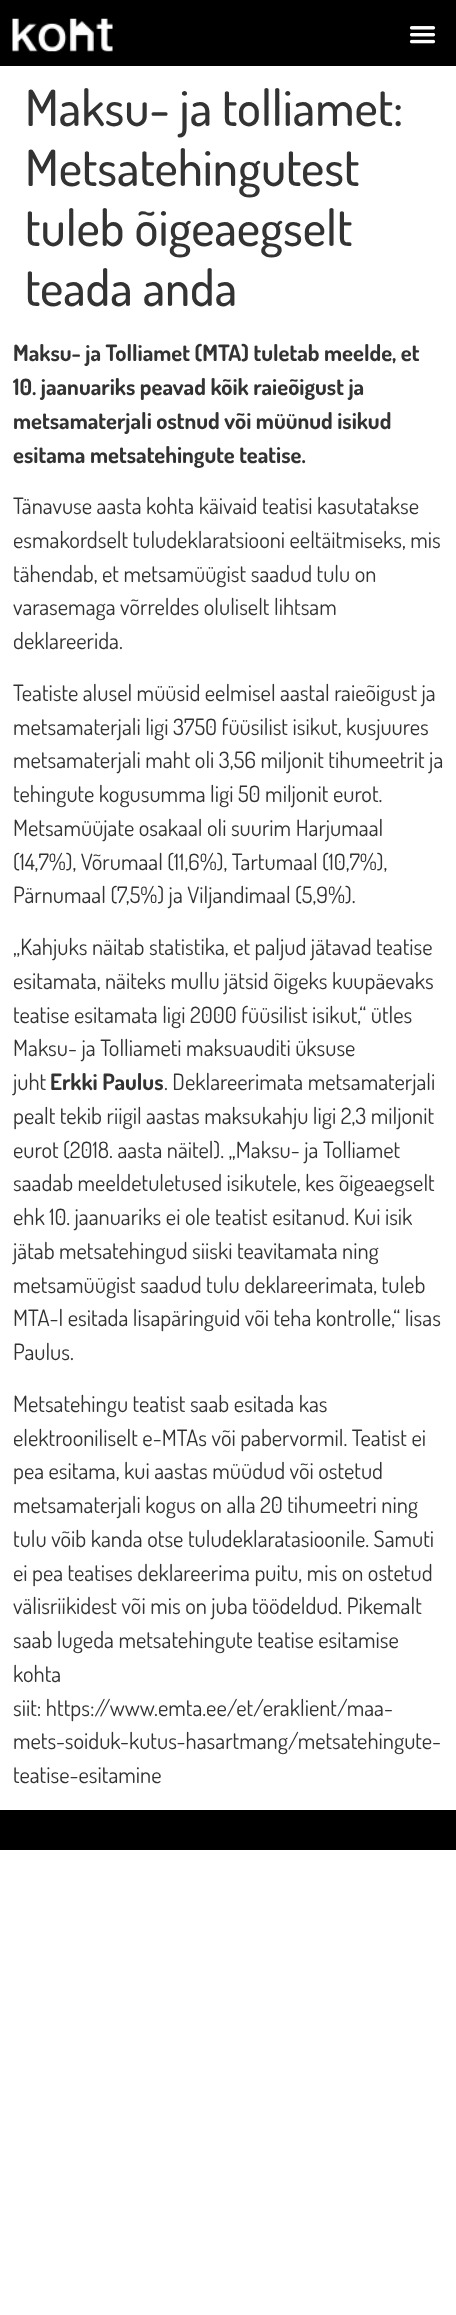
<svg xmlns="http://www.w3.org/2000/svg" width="456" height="2315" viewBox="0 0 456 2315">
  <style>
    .t1 { font: 500 50px Dosis; fill: #333; }
    .t2 { font: bold 22.5px Dosis; fill: #333; }
    .t3 { font: 22.5px Dosis; fill: #333; }
  </style>
  <rect width="100%" height="100%" fill="#fff"/>
  <rect x="0" y="0" width="456" height="66" fill="#000"/>
  <image x="12" y="18" width="101" height="34" href="images/1.png"/>
  <image x="409" y="26" width="27" height="18" href="images/2.png"/>
  <text x="25" y="126" class="t1">Maksu- ja tolliamet:</text>
  <text x="25" y="186" class="t1">Metsatehingutest</text>
  <text x="25" y="246" class="t1">tuleb õigeaegselt</text>
  <text x="25" y="306" class="t1">teada anda</text>
  <text x="13" y="361" class="t2">Maksu- ja Tolliamet (MTA) tuletab meelde, et</text>
  <text x="13" y="395" class="t2">10. jaanuariks peavad kõik raieõigust ja</text>
  <text x="13" y="429" class="t2">metsamaterjali ostnud või müünud isikud</text>
  <text x="13" y="463" class="t2">esitama metsatehingute teatise.</text>
  <text x="13" y="514" class="t3">Tänavuse aasta kohta käivaid teatisi kasutatakse</text>
  <text x="13" y="548" class="t3">esmakordselt tuludeklaratsiooni eeltäitmiseks, mis</text>
  <text x="13" y="582" class="t3">tähendab, et metsamüügist saadud tulu on</text>
  <text x="13" y="615" class="t3">varasemaga võrreldes oluliselt lihtsam</text>
  <text x="13" y="649" class="t3">deklareerida.</text>
  <text x="13" y="701" class="t3">Teatiste alusel müüsid eelmisel aastal raieõigust ja</text>
  <text x="13" y="735" class="t3">metsamaterjali ligi 3750 füüsilist isikut, kusjuures</text>
  <text x="13" y="768" class="t3">metsamaterjali maht oli 3,56 miljonit tihumeetrit ja</text>
  <text x="13" y="802" class="t3">tehingute kogusumma ligi 50 miljonit eurot.</text>
  <text x="13" y="836" class="t3">Metsamüüjate osakaal oli suurim Harjumaal</text>
  <text x="13" y="870" class="t3">(14,7%), Võrumaal (11,6%), Tartumaal (10,7%),</text>
  <text x="13" y="903" class="t3">Pärnumaal (7,5%) ja Viljandimaal (5,9%).</text>
  <text x="13" y="955" class="t3">„Kahjuks näitab statistika, et paljud jätavad teatise</text>
  <text x="13" y="989" class="t3">esitamata, näiteks mullu jätsid õigeks kuupäevaks</text>
  <text x="13" y="1023" class="t3">teatise esitamata ligi 2000 füüsilist isikut,“ ütles</text>
  <text x="13" y="1056" class="t3">Maksu- ja Tolliameti maksuauditi üksuse</text>
  <text x="13" y="1090" class="t3">juht</text>
  <text x="50" y="1090" class="t2">Erkki Paulus</text>
  <text x="164" y="1090" class="t3">. Deklareerimata metsamaterjali</text>
  <text x="13" y="1124" class="t3">pealt tekib riigil aastas maksukahju ligi 2,3 miljonit</text>
  <text x="13" y="1158" class="t3">eurot (2018. aasta näitel). „Maksu- ja Tolliamet</text>
  <text x="13" y="1191" class="t3">saadab meeldetuletused isikutele, kes õigeaegselt</text>
  <text x="13" y="1225" class="t3">ehk 10. jaanuariks ei ole teatist esitanud. Kui isik</text>
  <text x="13" y="1259" class="t3">jätab metsatehingud siiski teavitamata ning</text>
  <text x="13" y="1293" class="t3">metsamüügist saadud tulu deklareerimata, tuleb</text>
  <text x="13" y="1326" class="t3">MTA-l esitada lisapäringuid või teha kontrolle,“ lisas</text>
  <text x="13" y="1360" class="t3">Paulus.</text>
  <text x="13" y="1412" class="t3">Metsatehingu teatist saab esitada kas</text>
  <text x="13" y="1446" class="t3">elektrooniliselt e-MTAs või pabervormil. Teatist ei</text>
  <text x="13" y="1479" class="t3">pea esitama, kui aastas müüdud või ostetud</text>
  <text x="13" y="1513" class="t3">metsamaterjali kogus on alla 20 tihumeetri ning</text>
  <text x="13" y="1547" class="t3">tulu võib kanda otse tuludeklaratasioonile. Samuti</text>
  <text x="13" y="1581" class="t3">ei pea teatises deklareerima puitu, mis on ostetud</text>
  <text x="13" y="1614" class="t3">välisriikidest või mis on juba töödeldud. Pikemalt</text>
  <text x="13" y="1648" class="t3">saab lugeda metsatehingute teatise esitamise</text>
  <text x="13" y="1682" class="t3">kohta</text>
  <text x="13" y="1716" class="t3">siit: https://www.emta.ee/et/eraklient/maa-</text>
  <text x="13" y="1749" class="t3">mets-soiduk-kutus-hasartmang/metsatehingute-</text>
  <text x="13" y="1783" class="t3">teatise-esitamine</text>
  <rect x="0" y="1810" width="456" height="40" fill="#000"/>
</svg>
